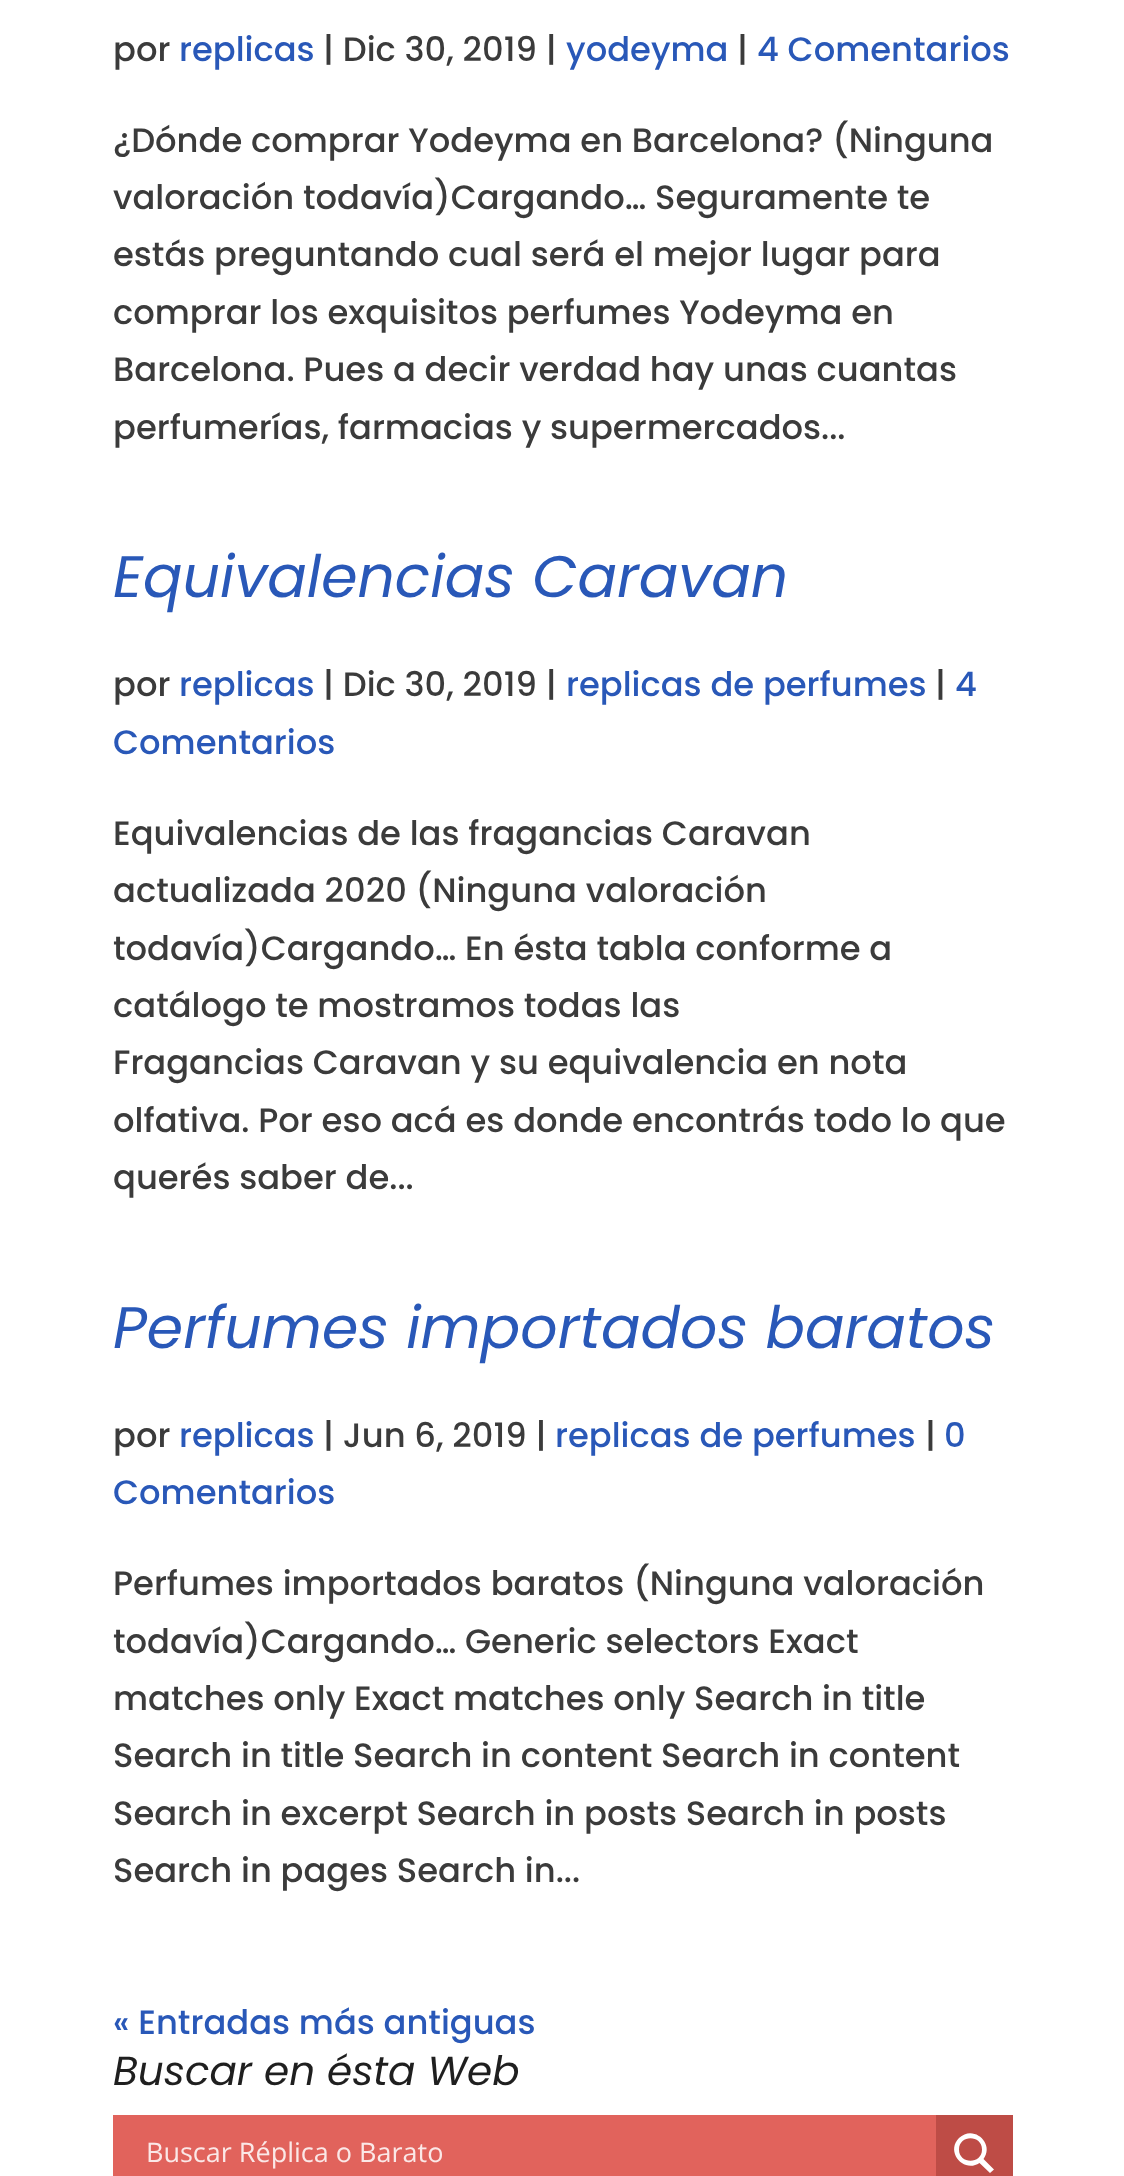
<svg xmlns="http://www.w3.org/2000/svg" width="1124" height="2176" viewBox="0 0 1124 2176">
  <style>
    .t1 { font: 500 33.75px Poppins; fill: #3b3b3b; }
    .t2 { font: 500 33.75px Poppins; fill: #2958b8; }
    .t3 { font: italic 58.5px Poppins; fill: #2958b8; }
    .t4 { font: italic 40.5px Poppins; fill: #1f1f1f; }
    .t5 { font: 27px Open Sans; fill: #fbe8e7; }
  </style>
  <rect width="100%" height="100%" fill="#fff"/>
  <text x="113" y="61" class="t1">por</text>
  <text x="179" y="61" class="t2">replicas</text>
  <text x="323" y="61" class="t1">| Dic 30, 2019 |</text>
  <text x="566" y="61" class="t2">yodeyma</text>
  <text x="737" y="61" class="t1">|</text>
  <text x="757" y="61" class="t2">4 Comentarios</text>
  <text x="113" y="152" class="t1">¿Dónde comprar Yodeyma en Barcelona? (Ninguna</text>
  <text x="113" y="209" class="t1">valoración todavía)Cargando… Seguramente te</text>
  <text x="113" y="266" class="t1">estás preguntando cual será el mejor lugar para</text>
  <text x="113" y="324" class="t1">comprar los exquisitos perfumes Yodeyma en</text>
  <text x="113" y="381" class="t1">Barcelona. Pues a decir verdad hay unas cuantas</text>
  <text x="113" y="439" class="t1">perfumerías, farmacias y supermercados...</text>
  <text x="113" y="597" class="t3">Equivalencias Caravan</text>
  <text x="113" y="696" class="t1">por</text>
  <text x="179" y="696" class="t2">replicas</text>
  <text x="323" y="696" class="t1">| Dic 30, 2019 |</text>
  <text x="566" y="696" class="t2">replicas de perfumes</text>
  <text x="935" y="696" class="t1">|</text>
  <text x="955" y="696" class="t2">4</text>
  <text x="113" y="754" class="t2">Comentarios</text>
  <text x="113" y="845" class="t1">Equivalencias de las fragancias Caravan</text>
  <text x="113" y="902" class="t1">actualizada 2020 (Ninguna valoración</text>
  <text x="113" y="960" class="t1">todavía)Cargando… En ésta tabla conforme a</text>
  <text x="113" y="1017" class="t1">catálogo te mostramos todas las</text>
  <text x="113" y="1074" class="t1">Fragancias Caravan y su equivalencia en nota</text>
  <text x="113" y="1132" class="t1">olfativa. Por eso acá es donde encontrás todo lo que</text>
  <text x="113" y="1189" class="t1">querés saber de...</text>
  <text x="113" y="1348" class="t3">Perfumes importados baratos</text>
  <text x="113" y="1447" class="t1">por</text>
  <text x="179" y="1447" class="t2">replicas</text>
  <text x="323" y="1447" class="t1">| Jun 6, 2019 |</text>
  <text x="555" y="1447" class="t2">replicas de perfumes</text>
  <text x="925" y="1447" class="t1">|</text>
  <text x="944" y="1447" class="t2">0</text>
  <text x="113" y="1504" class="t2">Comentarios</text>
  <text x="113" y="1595" class="t1">Perfumes importados baratos (Ninguna valoración</text>
  <text x="113" y="1653" class="t1">todavía)Cargando… Generic selectors Exact</text>
  <text x="113" y="1710" class="t1">matches only Exact matches only Search in title</text>
  <text x="113" y="1767" class="t1">Search in title Search in content Search in content</text>
  <text x="113" y="1825" class="t1">Search in excerpt Search in posts Search in posts</text>
  <text x="113" y="1882" class="t1">Search in pages Search in...</text>
  <text x="113" y="2034" class="t2">« Entradas más antiguas</text>
  <text x="113" y="2085" class="t4">Buscar en ésta Web</text>
  <rect x="113" y="2115" width="823" height="61" fill="#e1635c"/>
  <text x="146" y="2162" class="t5">Buscar Réplica o Barato</text>
  <rect x="936" y="2115" width="77" height="61" fill="#be4c46"/>
  <path d="M994 2169.5L983.5 2159C995 2143.5 973.5 2124 959 2138C945 2152 964 2173.5 979.5 2163L990 2173ZM959 2149.5C959 2134.5 982 2134.5 982 2149.5C982 2164.5 959 2164.5 959 2149.5Z" fill="#fff"/>
</svg>
